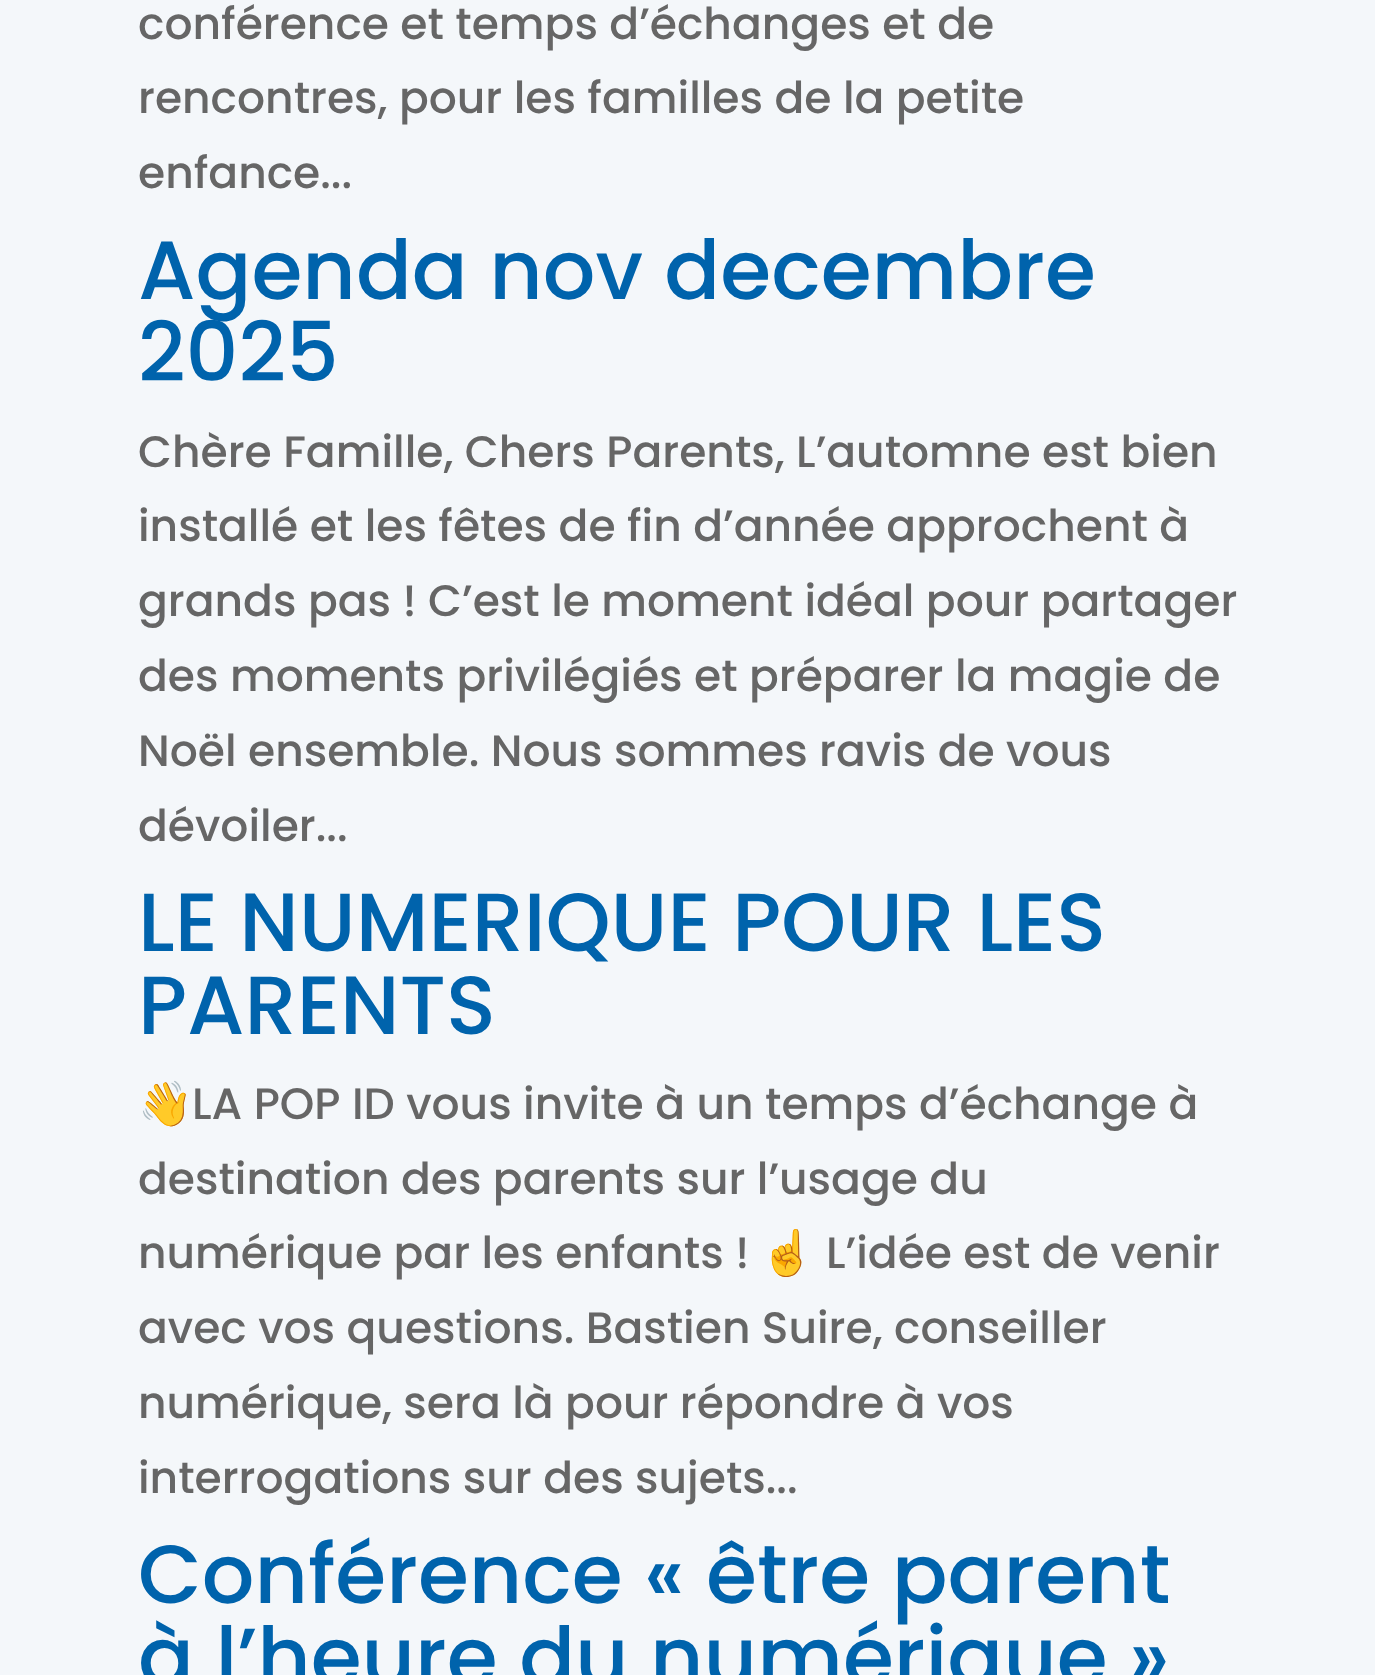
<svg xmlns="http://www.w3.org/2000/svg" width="1375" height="1675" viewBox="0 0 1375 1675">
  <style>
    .t1 { font: 500 44px Poppins; fill: #666; }
    .t2 { font: 500 82.5px Poppins; fill: #0063ac; }
    .t3 { font: 44px Noto Color Emoji; fill: #666; }
  </style>
  <rect width="100%" height="100%" fill="#f4f7fa"/>
  <text x="138" y="39" class="t1">conférence et temps d’échanges et de</text>
  <text x="138" y="113" class="t1">rencontres, pour les familles de la petite</text>
  <text x="138" y="188" class="t1">enfance...</text>
  <text x="138" y="299" class="t2">Agenda nov decembre</text>
  <text x="138" y="381" class="t2">2025</text>
  <text x="138" y="467" class="t1">Chère Famille, Chers Parents, L’automne est bien</text>
  <text x="138" y="541" class="t1">installé et les fêtes de fin d’année approchent à</text>
  <text x="138" y="616" class="t1">grands pas ! C’est le moment idéal pour partager</text>
  <text x="138" y="691" class="t1">des moments privilégiés et préparer la magie de</text>
  <text x="138" y="766" class="t1">Noël ensemble. Nous sommes ravis de vous</text>
  <text x="138" y="841" class="t1">dévoiler...</text>
  <text x="138" y="951" class="t2">LE NUMERIQUE POUR LES</text>
  <text x="138" y="1034" class="t2">PARENTS</text>
  <text x="138" y="1119" class="t3">👋</text>
  <text x="192" y="1119" class="t1">LA POP ID vous invite à un temps d’échange à</text>
  <text x="138" y="1194" class="t1">destination des parents sur l’usage du</text>
  <text x="138" y="1268" class="t1">numérique par les enfants !</text>
  <text x="760" y="1268" class="t3">☝️</text>
  <text x="826" y="1268" class="t1">L’idée est de venir</text>
  <text x="138" y="1343" class="t1">avec vos questions. Bastien Suire, conseiller</text>
  <text x="138" y="1418" class="t1">numérique, sera là pour répondre à vos</text>
  <text x="138" y="1493" class="t1">interrogations sur des sujets...</text>
  <text x="138" y="1603" class="t2">Conférence « être parent</text>
  <text x="138" y="1686" class="t2">à l’heure du numérique »</text>
</svg>
